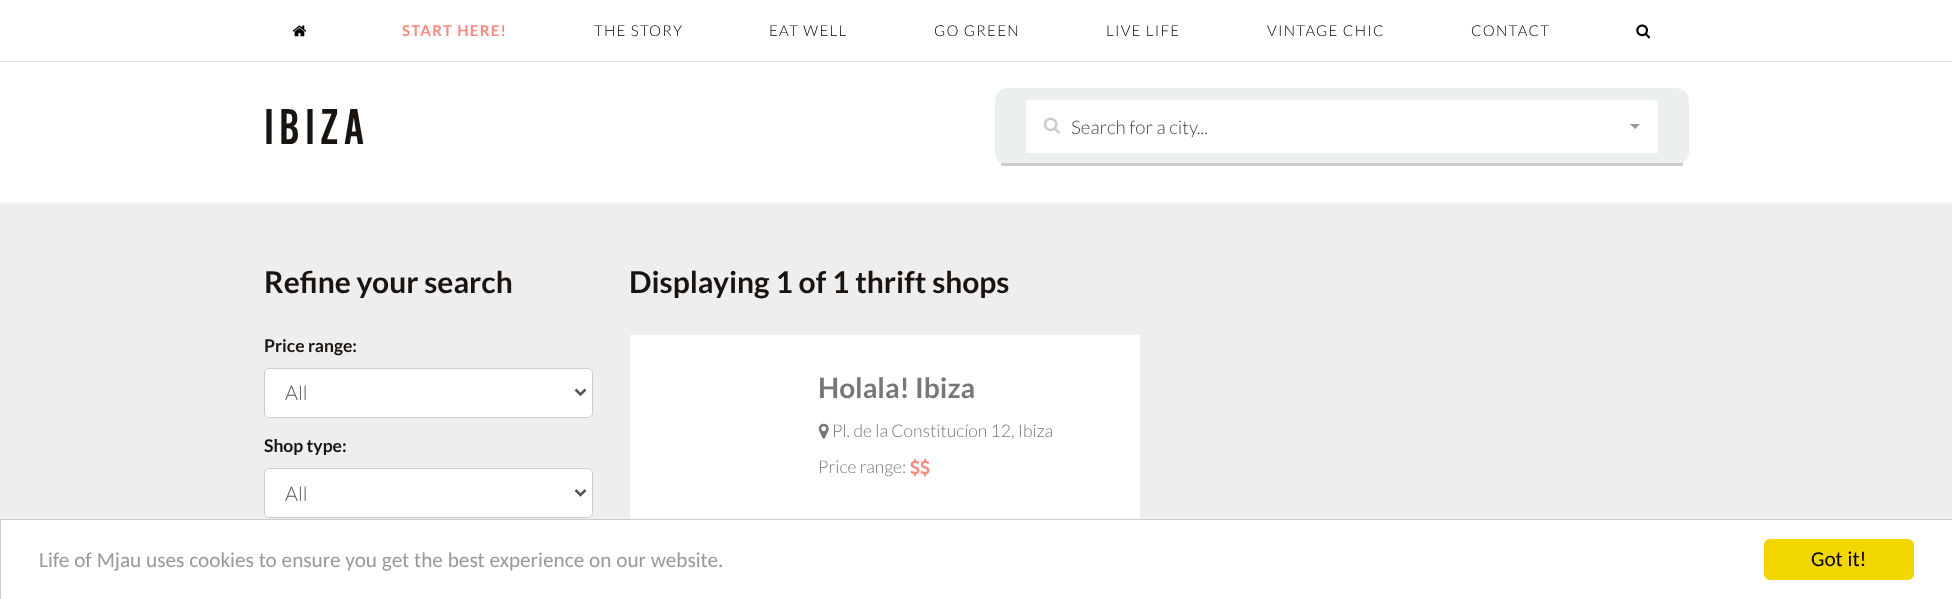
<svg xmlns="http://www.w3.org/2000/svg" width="1952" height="599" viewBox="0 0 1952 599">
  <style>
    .t1 { font: bold 15px Lato; letter-spacing: 1.25px; fill: #fa897e; }
    .t2 { font: 300 15px Lato; letter-spacing: 1.25px; fill: #000; }
    .t3 { font: 52.5px 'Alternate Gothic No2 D'; letter-spacing: 5px; fill: #1a1411; }
    .t4 { font: 300 18.75px Lato; fill: #444; }
    .t5 { font: bold 30px Lato; fill: #1a1411; }
    .t6 { font: bold 17.5px Lato; fill: #1a1411; }
    .t7 { font: 300 20px Lato; fill: #555; }
    .t8 { font: bold 28px Lato; fill: #777; }
    .t9 { font: 300 17.5px Lato; fill: #777; }
    .t10 { font: 21.25px Carlito; fill: #999; }
    .t11 { font: 21.25px Carlito; fill: #000; }
  </style>
  <rect width="100%" height="100%" fill="#fff"/>
  <rect x="0" y="61" width="1952" height="1" fill="#ddd"/>
  <image x="292" y="25" width="15" height="12" href="images/1.png"/>
  <text x="402" y="36" class="t1">START HERE!</text>
  <text x="594" y="36" class="t2">THE STORY</text>
  <text x="769" y="36" class="t2">EAT WELL</text>
  <text x="934" y="36" class="t2">GO GREEN</text>
  <text x="1106" y="36" class="t2">LIVE LIFE</text>
  <text x="1267" y="36" class="t2">VINTAGE CHIC</text>
  <text x="1471" y="36" class="t2">CONTACT</text>
  <image x="1636" y="24" width="15" height="15" href="images/2.png"/>
  <rect x="0" y="203" width="1952" height="316" fill="#eee"/>
  <text x="264" y="144" class="t3">IBIZA</text>
  <rect x="995" y="88" width="694" height="77" rx="13" fill="#ebeff0"/>
  <rect x="1001" y="163" width="682" height="3" fill="#ccc"/>
  <rect x="1026" y="100" width="632" height="53" fill="#fff"/>
  <image x="1043" y="117" width="17" height="17" href="images/3.png"/>
  <text x="1071" y="134" class="t4">Search for a city...</text>
  <path d="M1630 124H1640L1635 129Z" fill="#999"/>
  <text x="264" y="293" class="t5">Refine your search</text>
  <text x="264" y="352" class="t6">Price range:</text>
  <rect x="264.5" y="368.5" width="328" height="49" rx="4.5" fill="#fff" stroke="#ccc"/>
  <path d="M575.5 389.5L580.5 394.5L585.5 389.5" fill="none" stroke="#555" stroke-width="2.5"/>
  <text x="285" y="400" class="t7">All</text>
  <text x="264" y="452" class="t6">Shop type:</text>
  <rect x="264.5" y="468.5" width="328" height="49" rx="4.5" fill="#fff" stroke="#ccc"/>
  <path d="M575.5 490L580.5 495L585.5 490" fill="none" stroke="#555" stroke-width="2.5"/>
  <text x="285" y="501" class="t7">All</text>
  <text x="629" y="293" class="t5">Displaying 1 of 1 thrift shops</text>
  <rect x="630" y="335" width="510" height="184" fill="#fff"/>
  <text x="818" y="398" class="t8">Holala! Ibiza</text>
  <image x="818" y="423" width="11" height="16" href="images/4.png"/>
  <text x="832" y="437" class="t9">Pl. de la Constitucíon 12, Ibiza</text>
  <text x="818" y="473" class="t9">Price range:</text>
  <image x="910" y="458" width="10" height="19" href="images/5.png"/>
  <image x="920" y="458" width="10" height="19" href="images/5.png"/>
  <rect x="0.5" y="519.5" width="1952" height="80" fill="none" stroke="#ccc"/>
  <text x="39" y="567" class="t10">Life of Mjau uses cookies to ensure you get the best experience on our website.</text>
  <rect x="1764" y="539" width="150" height="41" rx="6" fill="#f1d600"/>
  <text x="1811" y="566" class="t11">Got it!</text>
</svg>
